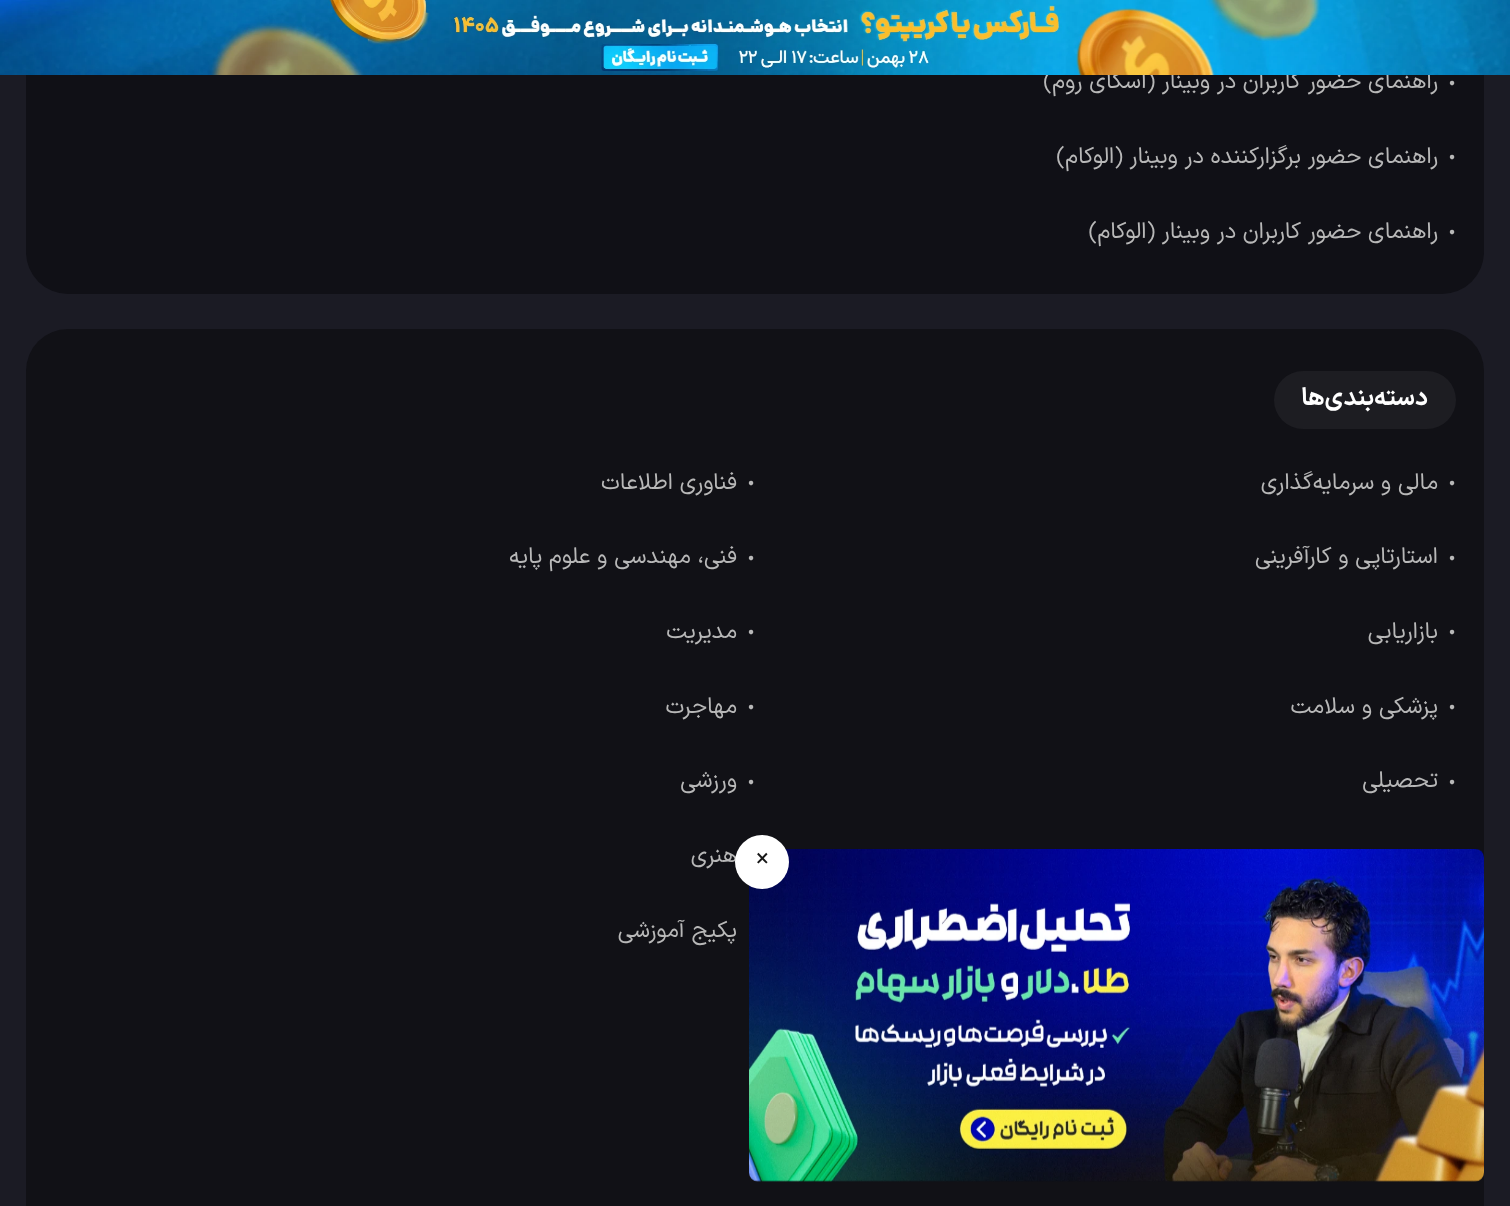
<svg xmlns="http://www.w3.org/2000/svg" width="1510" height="1206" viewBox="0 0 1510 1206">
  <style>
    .t1 { font: 22.75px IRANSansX; direction: rtl; fill: #b8b8b8; }
    .t2 { font: 18px IRANSansX; fill: #b8b8b8; }
    .t3 { font: bold 24.5px IRANSansX; direction: rtl; fill: #fff; }
    .t4 { font: 24px IRANSansX; fill: #171717; }
  </style>
  <rect width="100%" height="100%" fill="#1b1b24"/>
  <rect x="26" y="-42" width="1458" height="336" rx="42" fill="#101016"/>
  <text x="1438" y="88" class="t1">راهنمای حضور کاربران در وبینار (اسکای روم)</text>
  <image x="0" y="0" width="1510" height="75" href="images/1.png"/>
  <text x="1448" y="85" class="t2">•</text>
  <text x="1448" y="159" class="t2">•</text>
  <text x="1438" y="163" class="t1">راهنمای حضور برگزارکننده در وبینار (الوکام)</text>
  <text x="1448" y="234" class="t2">•</text>
  <text x="1438" y="238" class="t1">راهنمای حضور کاربران در وبینار (الوکام)</text>
  <rect x="26" y="329" width="1458" height="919" rx="42" fill="#111116"/>
  <rect x="1274" y="371" width="182" height="58" rx="29" fill="#1d1d22"/>
  <text x="1428" y="405" class="t3">دسته‌بندی‌ها</text>
  <text x="1448" y="485" class="t2">•</text>
  <text x="1438" y="489" class="t1">مالی و سرمایه‌گذاری</text>
  <text x="747" y="485" class="t2">•</text>
  <text x="737" y="489" class="t1">فناوری اطلاعات</text>
  <text x="1448" y="560" class="t2">•</text>
  <text x="1438" y="563" class="t1">استارتاپی و کارآفرینی</text>
  <text x="747" y="560" class="t2">•</text>
  <text x="737" y="563" class="t1">فنی، مهندسی و علوم پایه</text>
  <text x="1448" y="634" class="t2">•</text>
  <text x="1438" y="638" class="t1">بازاریابی</text>
  <text x="747" y="634" class="t2">•</text>
  <text x="737" y="638" class="t1">مدیریت</text>
  <text x="1448" y="709" class="t2">•</text>
  <text x="1438" y="713" class="t1">پزشکی و سلامت</text>
  <text x="747" y="709" class="t2">•</text>
  <text x="737" y="713" class="t1">مهاجرت</text>
  <text x="1448" y="784" class="t2">•</text>
  <text x="1438" y="787" class="t1">تحصیلی</text>
  <text x="747" y="784" class="t2">•</text>
  <text x="737" y="787" class="t1">ورزشی</text>
  <text x="737" y="862" class="t1">هنری</text>
  <text x="737" y="937" class="t1">پکیج آموزشی</text>
  <image x="749" y="849" width="735" height="333" href="images/2.png"/>
  <circle cx="762" cy="862" r="27" fill="#fff"/>
  <text x="756" y="866" class="t4">×</text>
</svg>
